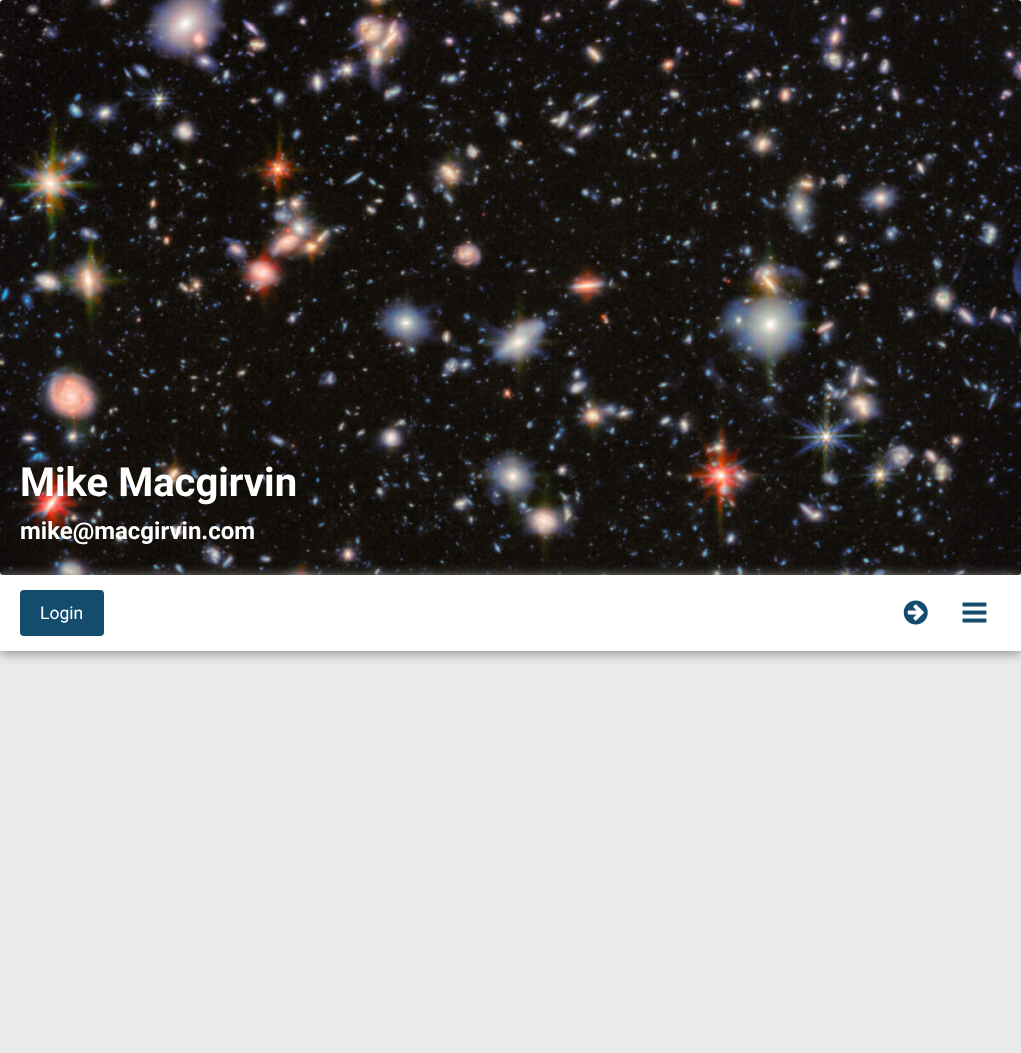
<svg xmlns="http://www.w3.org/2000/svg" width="1021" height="1053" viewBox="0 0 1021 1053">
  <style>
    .t1 { font: bold 40px Roboto; fill: #fff; }
    .t2 { font: bold 24px Roboto; fill: #fff; }
    .t3 { font: 17.5px Roboto; fill: #fff; }
  </style>
  <rect width="100%" height="100%" fill="#eaeaea"/>
  <image x="0" y="0" width="1021" height="575" href="images/1.png"/>
  <text x="20" y="496" class="t1">Mike Macgirvin</text>
  <text x="20" y="539" class="t2">mike@macgirvin.com</text>
  <rect x="0" y="576" width="1021" height="77" fill="#888" filter="blur(6px)"/>
  <rect x="0" y="575" width="1021" height="76" fill="#fff"/>
  <rect x="20" y="590" width="84" height="46" rx="4" fill="#144c6e"/>
  <text x="40" y="619" class="t3">Login</text>
  <image x="903" y="600" width="25" height="25" href="images/2.png"/>
  <image x="962" y="602" width="25" height="21" href="images/3.png"/>
</svg>
